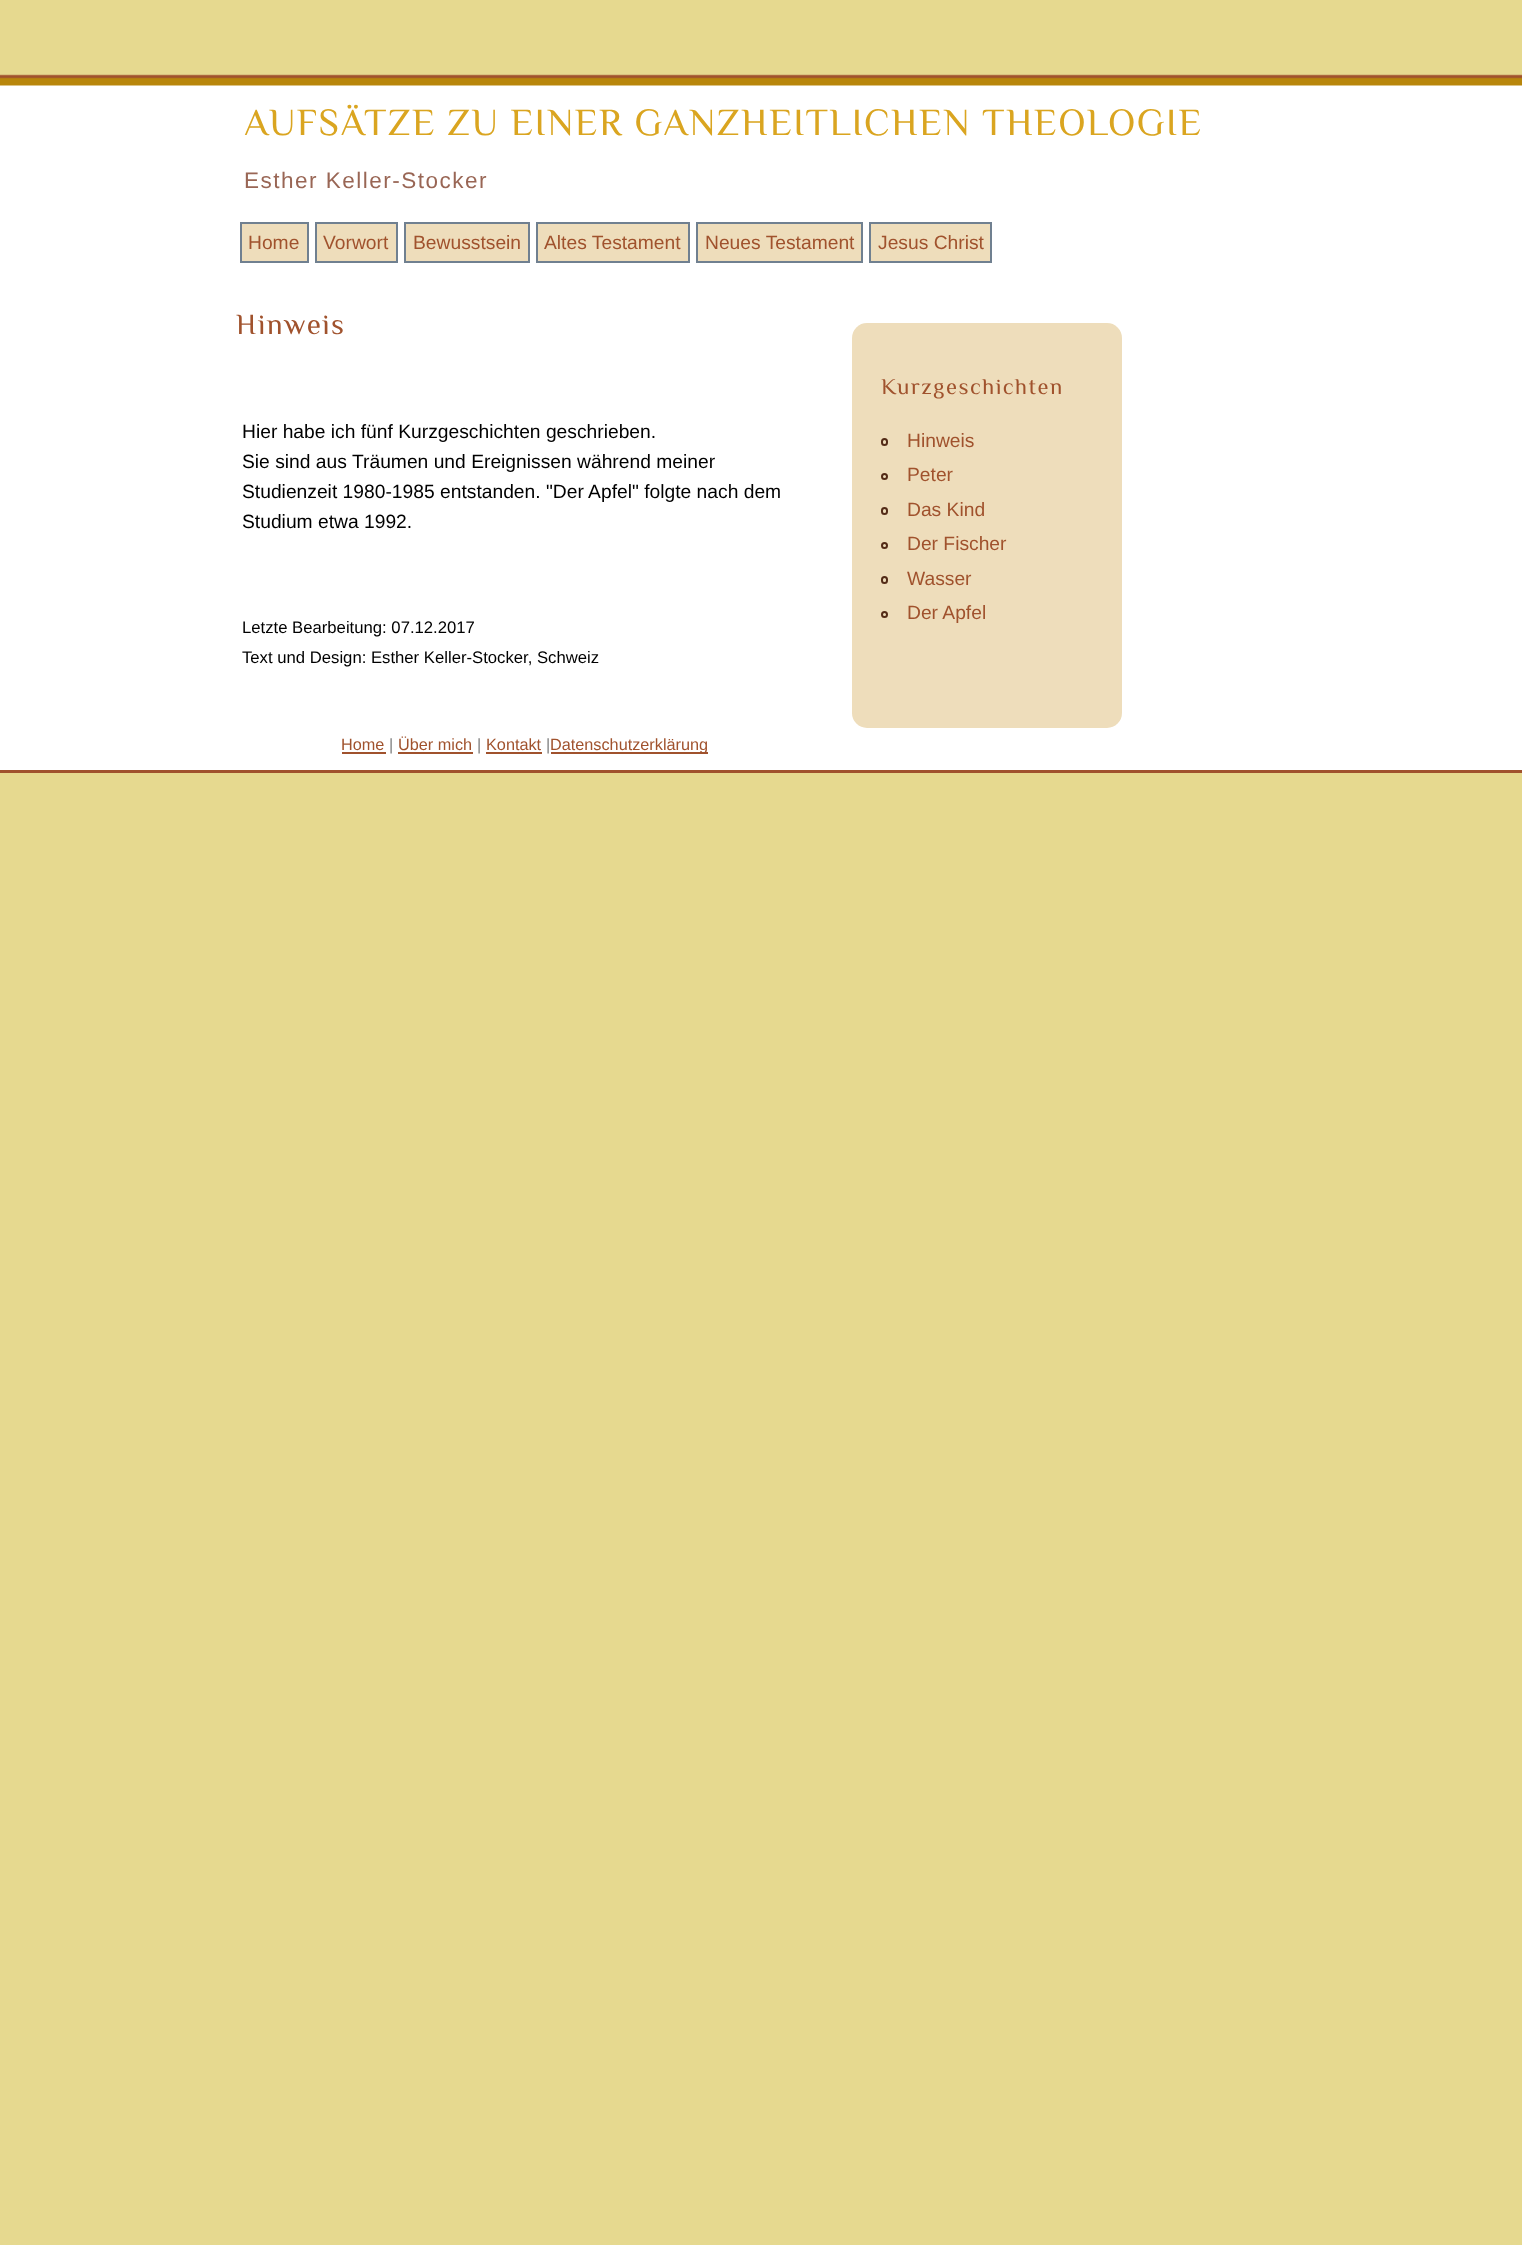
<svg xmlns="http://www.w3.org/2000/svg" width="1522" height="2245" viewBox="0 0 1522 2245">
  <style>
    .t1 { font: 38.4px Philosopher; letter-spacing: 1.5px; fill: #daa520; }
    .t2 { font: 22.5px Liberation Sans; letter-spacing: 1.5px; fill: #965; }
    .t3 { font: 19.25px Liberation Sans; fill: #a0522d; }
    .t4 { font: 29px Philosopher; letter-spacing: 1.5px; fill: #a0522d; }
    .t5 { font: 19.25px Liberation Sans; fill: #000; }
    .t6 { font: 16.7px Liberation Sans; fill: #000; }
    .t7 { font: 22.5px Philosopher; letter-spacing: 1.5px; fill: #a0522d; }
    .t8 { font: 16.25px Liberation Sans; fill: #a0522d; }
    .t9 { font: 16.25px Liberation Sans; fill: #808080; }
  </style>
  <rect width="100%" height="100%" fill="#e6d98f"/>
  <image x="0" y="74" width="1522" height="12" href="images/1.png"/>
  <rect x="0" y="86" width="1522" height="684" fill="#fff"/>
  <rect x="0" y="770" width="1522" height="3" fill="#a0522d"/>
  <text x="244" y="135" class="t1">AUFSÄTZE ZU EINER GANZHEITLICHEN THEOLOGIE</text>
  <text x="244" y="188" class="t2">Esther Keller-Stocker</text>
  <rect x="241" y="223" width="67" height="39" fill="#edb" stroke="#708090" stroke-width="2"/>
  <text x="248" y="249" class="t3">Home</text>
  <rect x="316" y="223" width="81" height="39" fill="#edb" stroke="#708090" stroke-width="2"/>
  <text x="323" y="249" class="t3">Vorwort</text>
  <rect x="405" y="223" width="124" height="39" fill="#edb" stroke="#708090" stroke-width="2"/>
  <text x="413" y="249" class="t3">Bewusstsein</text>
  <rect x="537" y="223" width="152" height="39" fill="#edb" stroke="#708090" stroke-width="2"/>
  <text x="544" y="249" class="t3">Altes Testament</text>
  <rect x="697" y="223" width="165" height="39" fill="#edb" stroke="#708090" stroke-width="2"/>
  <text x="705" y="249" class="t3">Neues Testament</text>
  <rect x="870" y="223" width="121" height="39" fill="#edb" stroke="#708090" stroke-width="2"/>
  <text x="878" y="249" class="t3">Jesus Christ</text>
  <text x="236" y="334" class="t4">Hinweis</text>
  <text x="242" y="438" class="t5">Hier habe ich fünf Kurzgeschichten geschrieben.</text>
  <text x="242" y="468" class="t5">Sie sind aus</text>
  <text x="352" y="468" class="t5">Träumen und Ereignissen während meiner</text>
  <text x="242" y="498" class="t5">Studienzeit 1980-1985 entstanden. "Der Apfel" folgte nach dem</text>
  <text x="242" y="528" class="t5">Studium etwa 1992.</text>
  <text x="242" y="633" class="t6">Letzte Bearbeitung: 07.12.2017</text>
  <text x="242" y="663" class="t6">Text und Design: Esther Keller-Stocker, Schweiz</text>
  <rect x="852" y="323" width="270" height="405" rx="15" fill="#edb"/>
  <text x="881" y="394" class="t7">Kurzgeschichten</text>
  <rect x="882" y="439" width="5" height="6" rx="2.5" fill="none" stroke="#532b17" stroke-width="2"/>
  <text x="907" y="447" class="t3">Hinweis</text>
  <circle cx="884.5" cy="476.5" r="2.5" fill="none" stroke="#532b17" stroke-width="2"/>
  <text x="907" y="481" class="t3">Peter</text>
  <rect x="882" y="508" width="5" height="6" rx="2.5" fill="none" stroke="#532b17" stroke-width="2"/>
  <text x="907" y="516" class="t3">Das Kind</text>
  <circle cx="884.5" cy="545.5" r="2.5" fill="none" stroke="#532b17" stroke-width="2"/>
  <text x="907" y="550" class="t3">Der Fischer</text>
  <rect x="882" y="577" width="5" height="6" rx="2.5" fill="none" stroke="#532b17" stroke-width="2"/>
  <text x="907" y="585" class="t3">Wasser</text>
  <circle cx="884.5" cy="614.5" r="2.5" fill="none" stroke="#532b17" stroke-width="2"/>
  <text x="907" y="619" class="t3">Der Apfel</text>
  <text x="341" y="750" class="t8">Home</text>
  <rect x="342" y="752" width="44" height="2" fill="#a0522d"/>
  <text x="389" y="750" class="t9">|</text>
  <text x="398" y="750" class="t8">Über mich</text>
  <rect x="398" y="752" width="75" height="2" fill="#a0522d"/>
  <text x="477" y="750" class="t9">|</text>
  <text x="486" y="750" class="t8">Kontakt</text>
  <rect x="486" y="752" width="56" height="2" fill="#a0522d"/>
  <text x="546" y="750" class="t9">|</text>
  <rect x="551" y="752" width="157" height="2" fill="#a0522d"/>
  <text x="550" y="750" class="t8">Datenschutzerklärung</text>
</svg>
